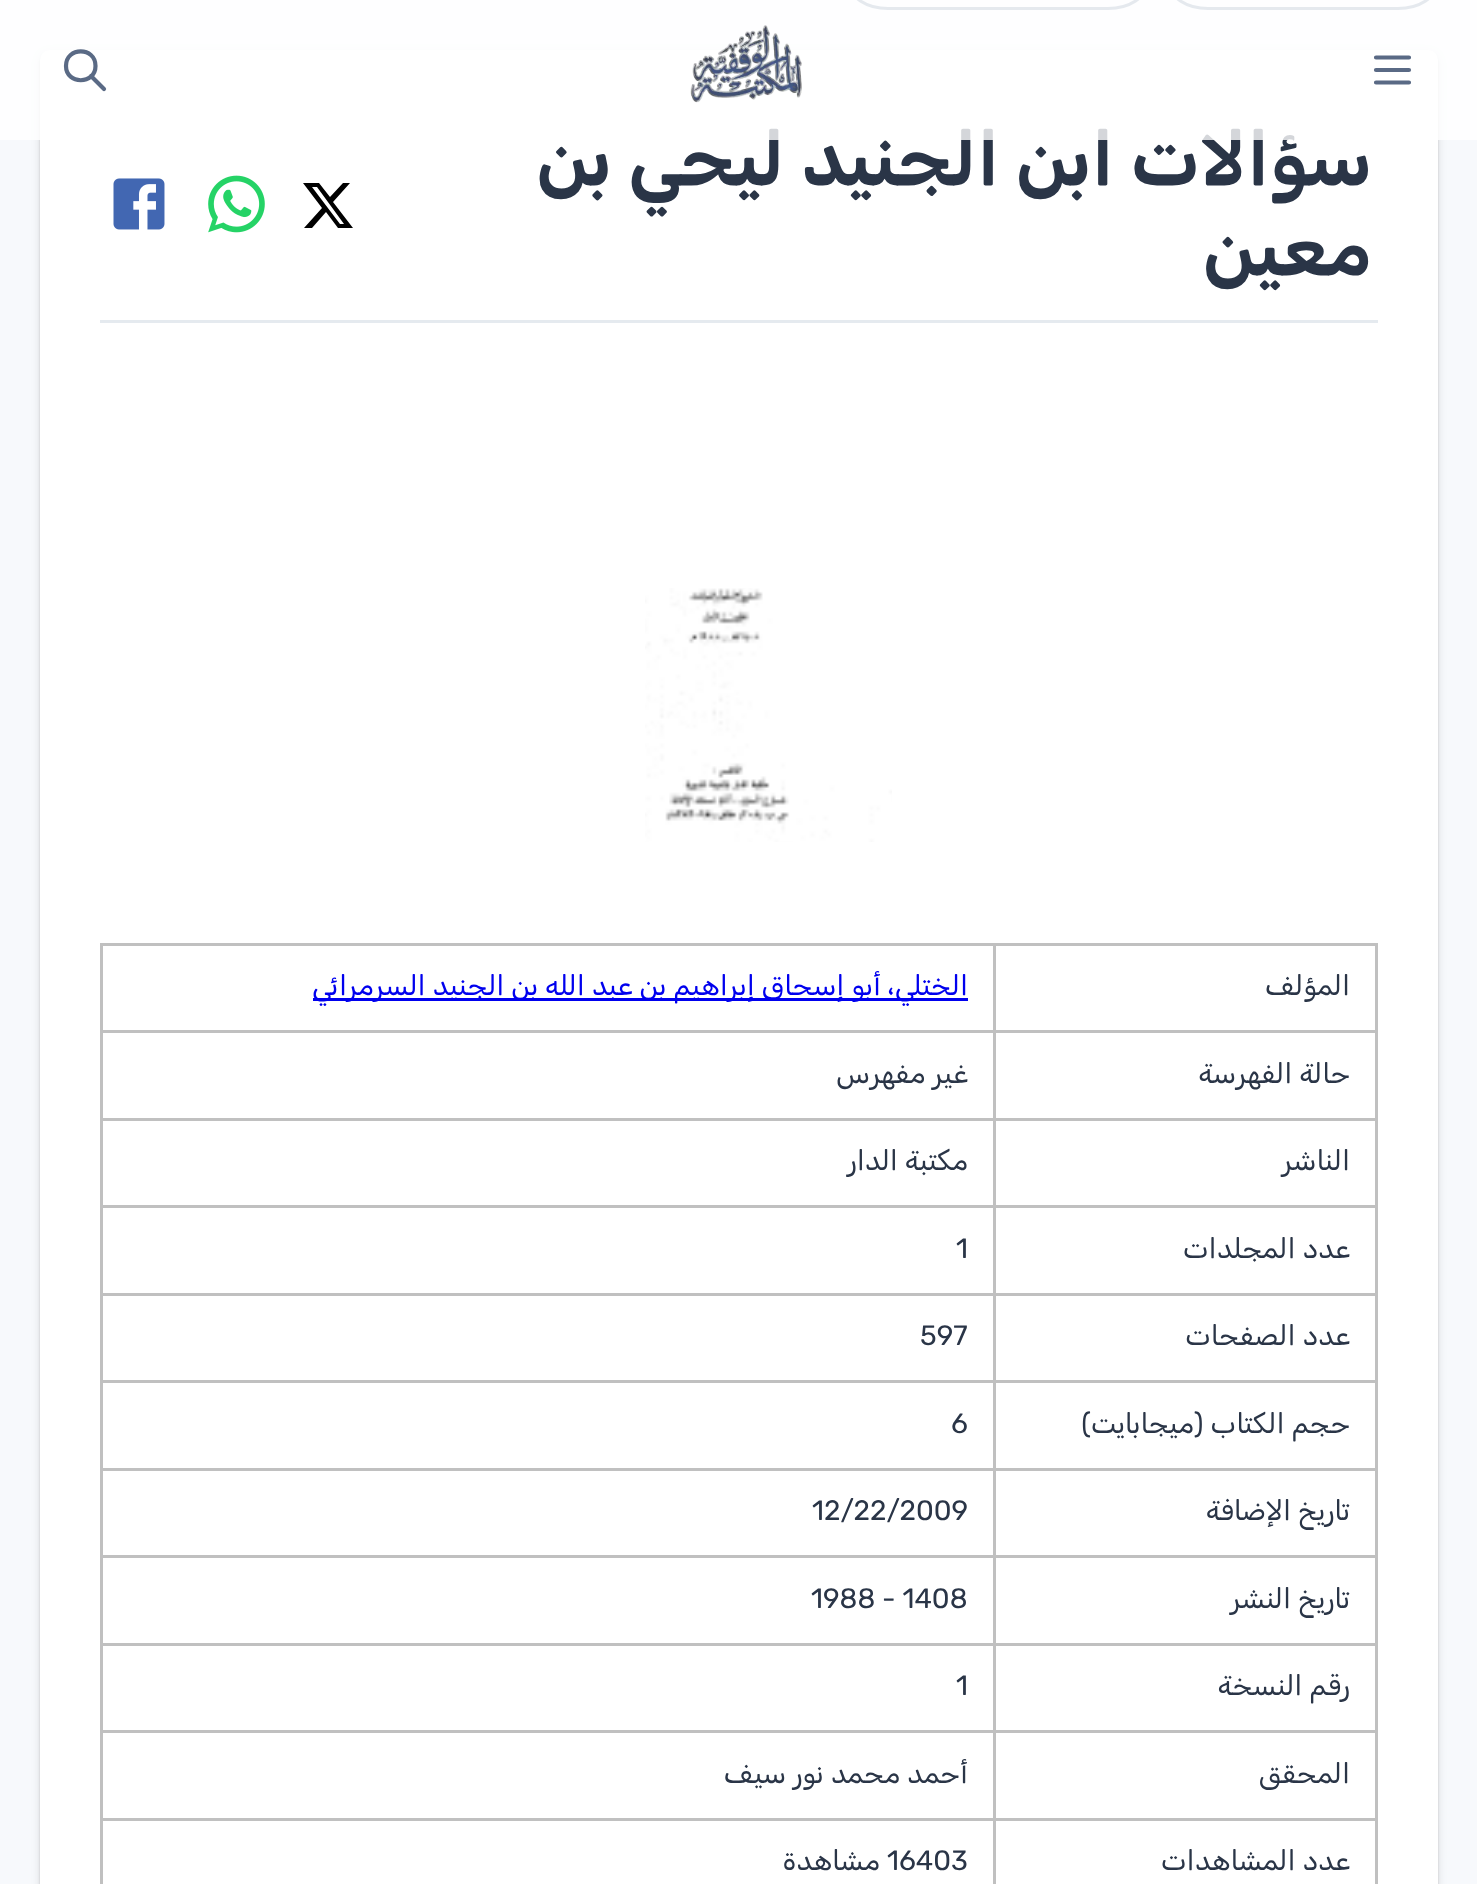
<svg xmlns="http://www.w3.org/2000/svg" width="1477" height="1884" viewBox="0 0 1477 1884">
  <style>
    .t1 { font: 600 75px Rubik; direction: rtl; fill: #2a3547; }
    .t2 { font: 28px Rubik; direction: rtl; fill: #2a3547; }
    .t3 { font: 28px Rubik; direction: rtl; fill: #00e; }
    .t4 { font: 28px Rubik; fill: #2a3547; }
  </style>
  <rect width="100%" height="100%" fill="#f7f9fc"/>
  <rect x="1169.5" y="-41.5" width="267" height="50" rx="38.5" fill="none" stroke="#7c8fac" stroke-width="3"/>
  <rect x="849.5" y="-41.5" width="297" height="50" rx="38.5" fill="none" stroke="#7c8fac" stroke-width="3"/>
  <rect x="40" y="53" width="1398" height="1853" rx="10" fill="#0000001f" filter="blur(4px)"/>
  <rect x="40" y="53" width="1398" height="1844" rx="10" fill="#00000024" filter="blur(1px)"/>
  <rect x="40" y="50" width="1398" height="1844" rx="10" fill="#fff"/>
  <text x="1372" y="185" class="t1">سؤالات ابن الجنيد ليحي بن</text>
  <rect x="0" y="0" width="1477" height="140" fill="#ffffffcc"/>
  <path d="M1376 57.5H1409M1376 70H1409M1376 82.5H1409" fill="none" stroke="#5a6a85" stroke-width="4.2" stroke-linecap="round" stroke-linejoin="round"/>
  <image x="690" y="25" width="112" height="78" href="images/1.png"/>
  <path d="M66 66C66 85 95.5 85 95.5 66C95.5 46.5 66 46.5 66 66M104 89L91 76" fill="none" stroke="#5a6a85" stroke-width="4.2" stroke-linecap="round" stroke-linejoin="round"/>
  <text x="1372" y="275" class="t1">معين</text>
  <path d="M343 183H350L333 202L353 228H338L326 212L312 228H304L322 208L303 183H319L330 197ZM340 224H344L317 187H312Z" fill="#000"/>
  <image x="208" y="175" width="57" height="58" href="images/2.png"/>
  <image x="113" y="178" width="52" height="52" href="images/3.png"/>
  <rect x="100" y="320" width="1278" height="3" fill="#e5eaef"/>
  <image x="645" y="588" width="247" height="254" href="images/4.png"/>
  <rect x="100" y="943" width="895" height="3" fill="#c0c0c0"/>
  <rect x="100" y="1030" width="895" height="3" fill="#c0c0c0"/>
  <rect x="100" y="1118" width="895" height="3" fill="#c0c0c0"/>
  <rect x="100" y="1205" width="895" height="3" fill="#c0c0c0"/>
  <rect x="100" y="1293" width="895" height="3" fill="#c0c0c0"/>
  <rect x="100" y="1380" width="895" height="3" fill="#c0c0c0"/>
  <rect x="100" y="1468" width="895" height="3" fill="#c0c0c0"/>
  <rect x="100" y="1555" width="895" height="3" fill="#c0c0c0"/>
  <rect x="100" y="1643" width="895" height="3" fill="#c0c0c0"/>
  <rect x="100" y="1730" width="895" height="3" fill="#c0c0c0"/>
  <rect x="100" y="1818" width="895" height="3" fill="#c0c0c0"/>
  <rect x="993" y="1818" width="3" height="66" fill="#c0c0c0"/>
  <rect x="993" y="1818" width="385" height="3" fill="#c0c0c0"/>
  <rect x="993" y="1730" width="3" height="90" fill="#c0c0c0"/>
  <rect x="993" y="1730" width="385" height="3" fill="#c0c0c0"/>
  <rect x="993" y="1643" width="3" height="90" fill="#c0c0c0"/>
  <rect x="993" y="1643" width="385" height="3" fill="#c0c0c0"/>
  <rect x="993" y="1555" width="3" height="90" fill="#c0c0c0"/>
  <rect x="993" y="1555" width="385" height="3" fill="#c0c0c0"/>
  <rect x="993" y="1468" width="3" height="90" fill="#c0c0c0"/>
  <rect x="993" y="1468" width="385" height="3" fill="#c0c0c0"/>
  <rect x="993" y="1380" width="3" height="90" fill="#c0c0c0"/>
  <rect x="993" y="1380" width="385" height="3" fill="#c0c0c0"/>
  <rect x="993" y="1293" width="3" height="90" fill="#c0c0c0"/>
  <rect x="993" y="1293" width="385" height="3" fill="#c0c0c0"/>
  <rect x="993" y="1205" width="3" height="90" fill="#c0c0c0"/>
  <rect x="993" y="1205" width="385" height="3" fill="#c0c0c0"/>
  <rect x="993" y="1118" width="3" height="90" fill="#c0c0c0"/>
  <rect x="993" y="1118" width="385" height="3" fill="#c0c0c0"/>
  <rect x="993" y="1030" width="3" height="90" fill="#c0c0c0"/>
  <rect x="993" y="1030" width="385" height="3" fill="#c0c0c0"/>
  <rect x="993" y="943" width="3" height="90" fill="#c0c0c0"/>
  <rect x="993" y="943" width="385" height="3" fill="#c0c0c0"/>
  <rect x="1375" y="1818" width="3" height="66" fill="#c0c0c0"/>
  <rect x="1375" y="1730" width="3" height="90" fill="#c0c0c0"/>
  <rect x="1375" y="1643" width="3" height="90" fill="#c0c0c0"/>
  <rect x="1375" y="1555" width="3" height="90" fill="#c0c0c0"/>
  <rect x="1375" y="1468" width="3" height="90" fill="#c0c0c0"/>
  <rect x="1375" y="1380" width="3" height="90" fill="#c0c0c0"/>
  <rect x="1375" y="1293" width="3" height="90" fill="#c0c0c0"/>
  <rect x="1375" y="1205" width="3" height="90" fill="#c0c0c0"/>
  <rect x="1375" y="1118" width="3" height="90" fill="#c0c0c0"/>
  <rect x="1375" y="1030" width="3" height="90" fill="#c0c0c0"/>
  <rect x="1375" y="943" width="3" height="90" fill="#c0c0c0"/>
  <text x="1350" y="995" class="t2">المؤلف</text>
  <rect x="100" y="1818" width="3" height="66" fill="#c0c0c0"/>
  <rect x="100" y="1730" width="3" height="90" fill="#c0c0c0"/>
  <rect x="100" y="1643" width="3" height="90" fill="#c0c0c0"/>
  <rect x="100" y="1555" width="3" height="90" fill="#c0c0c0"/>
  <rect x="100" y="1468" width="3" height="90" fill="#c0c0c0"/>
  <rect x="100" y="1380" width="3" height="90" fill="#c0c0c0"/>
  <rect x="100" y="1293" width="3" height="90" fill="#c0c0c0"/>
  <rect x="100" y="1205" width="3" height="90" fill="#c0c0c0"/>
  <rect x="100" y="1118" width="3" height="90" fill="#c0c0c0"/>
  <rect x="100" y="1030" width="3" height="90" fill="#c0c0c0"/>
  <rect x="100" y="943" width="3" height="90" fill="#c0c0c0"/>
  <rect x="313" y="998" width="655" height="3" fill="#00e"/>
  <text x="968" y="995" class="t3">الختلي، أبو إسحاق إبراهيم بن عبد الله بن الجنيد السرمرائي</text>
  <text x="1350" y="1083" class="t2">حالة الفهرسة</text>
  <text x="968" y="1083" class="t2">غير مفهرس</text>
  <text x="1350" y="1170" class="t2">الناشر</text>
  <text x="968" y="1170" class="t2">مكتبة الدار</text>
  <text x="1350" y="1258" class="t2">عدد المجلدات</text>
  <text x="956" y="1258" class="t4">1</text>
  <text x="1350" y="1345" class="t2">عدد الصفحات</text>
  <text x="920" y="1345" class="t4">597</text>
  <text x="1350" y="1433" class="t2">حجم الكتاب (ميجابايت)</text>
  <text x="951" y="1433" class="t4">6</text>
  <text x="1350" y="1520" class="t2">تاريخ الإضافة</text>
  <text x="812" y="1520" class="t4">12/22/2009</text>
  <text x="1350" y="1608" class="t2">تاريخ النشر</text>
  <text x="811" y="1608" class="t4">1988 - 1408</text>
  <text x="1350" y="1695" class="t2">رقم النسخة</text>
  <text x="956" y="1695" class="t4">1</text>
  <text x="1350" y="1783" class="t2">المحقق</text>
  <text x="968" y="1783" class="t2">أحمد محمد نور سيف</text>
  <text x="1350" y="1870" class="t2">عدد المشاهدات</text>
  <text x="887" y="1870" class="t4">16403</text>
  <text x="880" y="1870" class="t2">مشاهدة</text>
</svg>
